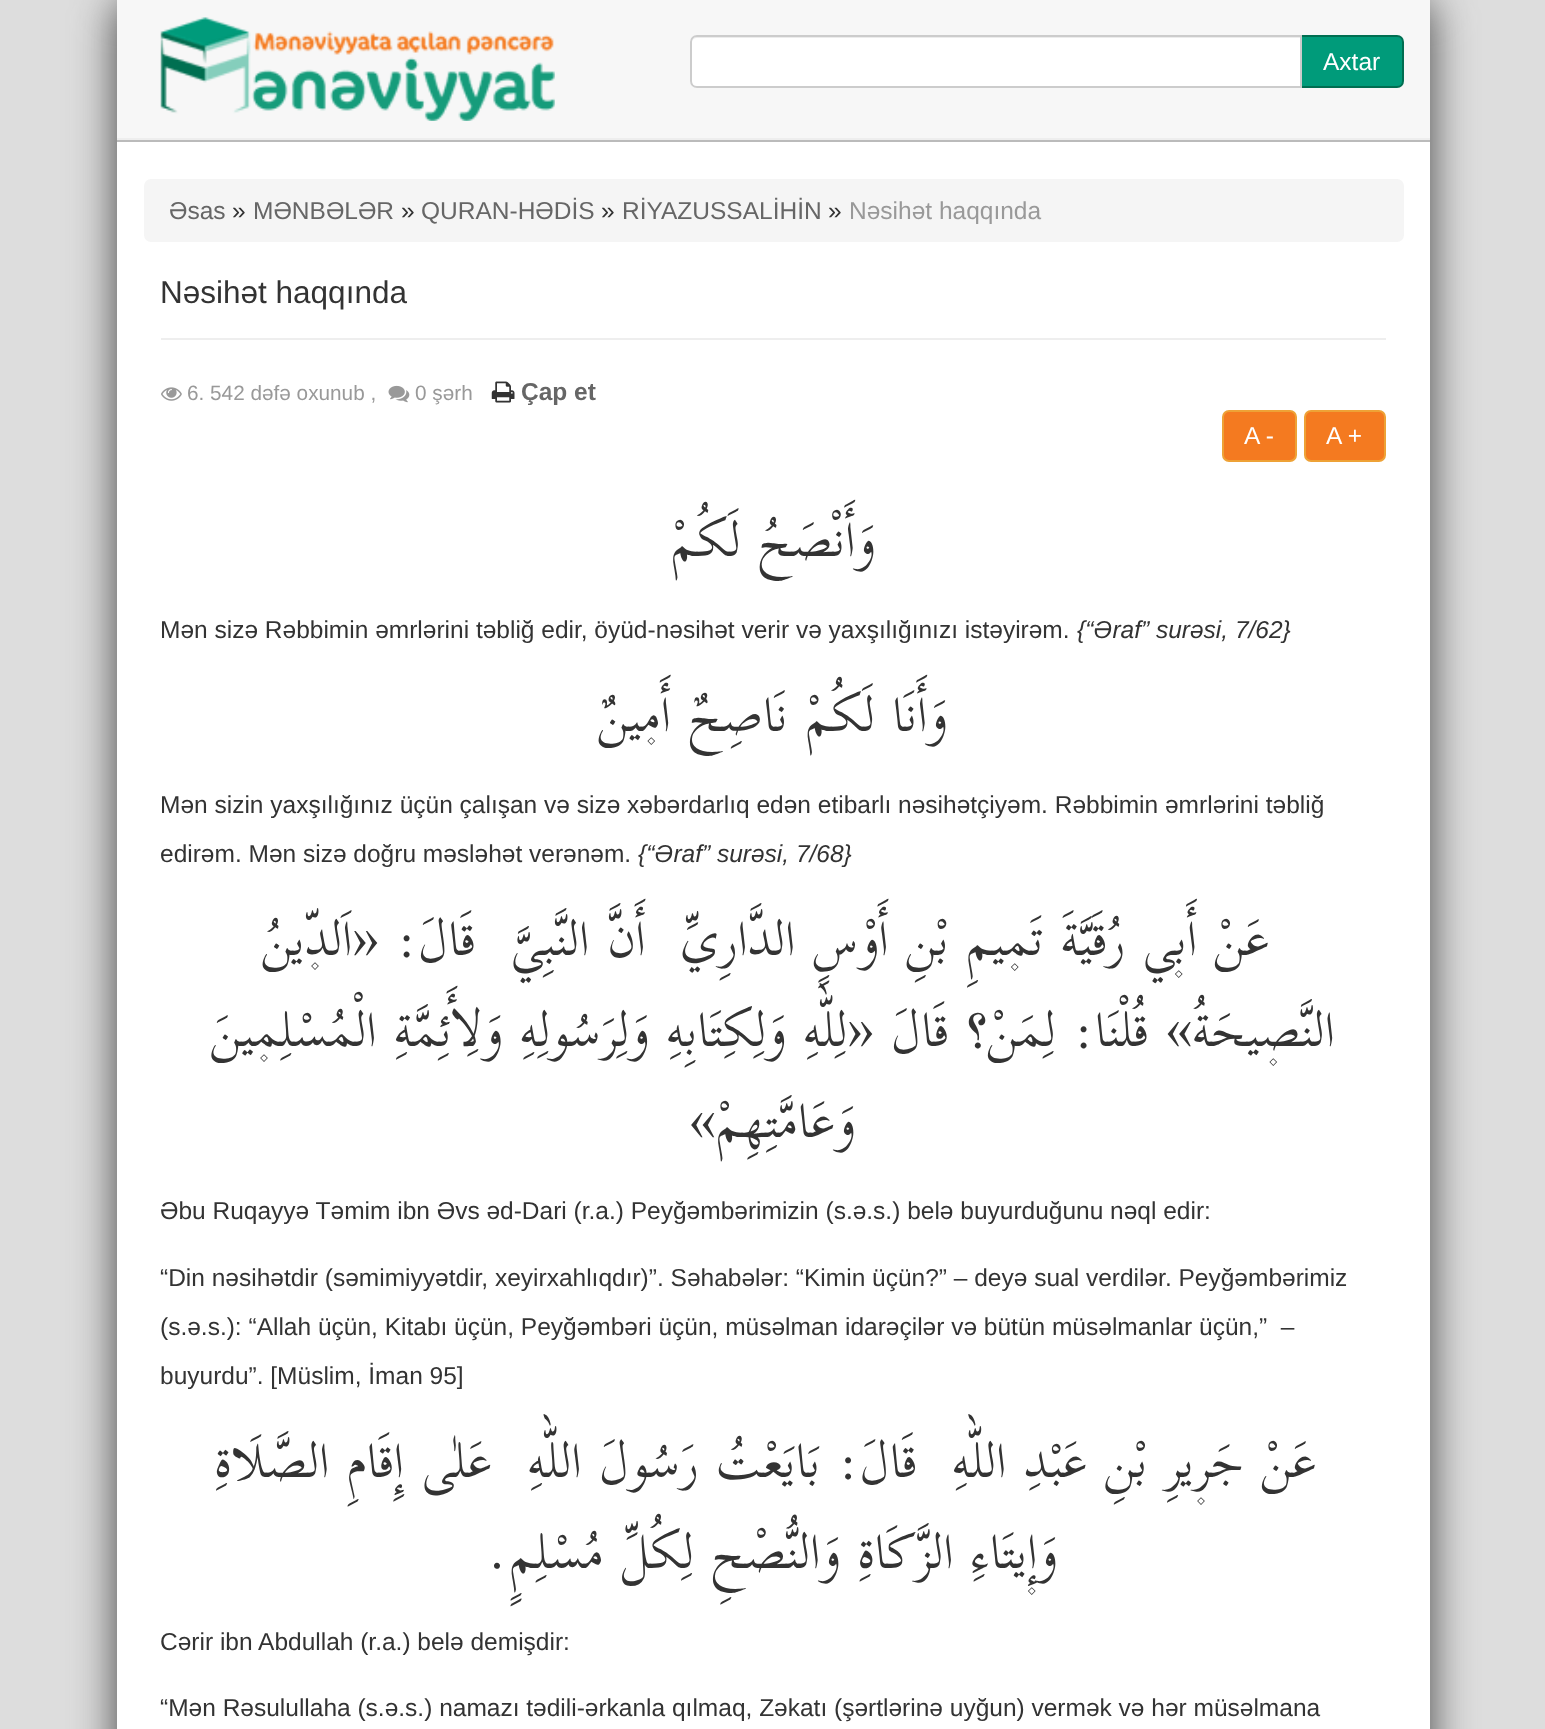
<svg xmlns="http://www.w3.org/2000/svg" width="1545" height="1729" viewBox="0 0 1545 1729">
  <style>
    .t1 { font: 24.5px Liberation Sans; fill: #fff; }
    .t2 { font: 24.5px Liberation Sans; fill: #666; }
    .t3 { font: 24.5px Liberation Sans; fill: #333; }
    .t4 { font: 24.5px Liberation Sans; fill: #999; }
    .t5 { font: 31.5px Liberation Sans; fill: #333; }
    .t6 { font: 20.75px Liberation Sans; fill: #999; }
    .t7 { font: bold 24.5px Liberation Sans; fill: #666; }
    .t8 { font: 70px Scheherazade; direction: rtl; fill: #333; }
    .t9 { font: italic 24.5px Liberation Sans; fill: #333; }
  </style>
  <rect width="100%" height="100%" fill="#ddd"/>
  <rect x="117" y="0" width="1313" height="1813" rx="18" fill="#424242" filter="blur(22px)"/>
  <rect x="117" y="142" width="1313" height="1587" fill="#fff"/>
  <rect x="117" y="0" width="1313" height="138" fill="#f7f7f7"/>
  <rect x="117" y="138" width="1313" height="2" fill="#eee"/>
  <image x="160" y="17" width="395" height="104" href="images/1.png"/>
  <path d="M1301 36H1397C1400.5 36 1403 38.5 1403 42V81C1403 84.5 1400.5 87 1397 87H1301Z" fill="#009b7a" stroke="#006e51" stroke-width="2"/>
  <path d="M697 35H1302V88H697C693 88 690 85 690 81V42C690 38 693 35 697 35Z" fill="#fff"/>
  <path d="M696 38H1300V37H696C692 37 691 41 691 44C691 41 694 38 696 38Z" fill="#ececec"/>
  <path d="M697 36H1301V87H697C693.5 87 691 84.5 691 81V42C691 38.5 693.5 36 697 36Z" fill="none" stroke="#ccc" stroke-width="2"/>
  <text x="1323" y="70" class="t1">Axtar</text>
  <rect x="117" y="140" width="1313" height="2" fill="#bbb"/>
  <rect x="144" y="179" width="1260" height="63" rx="7" fill="#f5f5f5"/>
  <text x="169" y="219" class="t2">Əsas</text>
  <text x="232" y="219" class="t3">»</text>
  <text x="253" y="219" class="t2">MƏNBƏLƏR</text>
  <text x="401" y="219" class="t3">»</text>
  <text x="421" y="219" class="t2">QURAN-HƏDİS</text>
  <text x="601" y="219" class="t3">»</text>
  <text x="622" y="219" class="t2">RİYAZUSSALİHİN</text>
  <text x="828" y="219" class="t3">»</text>
  <text x="849" y="219" class="t4">Nəsihət haqqında</text>
  <rect x="161" y="338" width="1225" height="2" fill="#eee"/>
  <text x="160" y="303" class="t5">Nəsihət haqqında</text>
  <image x="161" y="387" width="21" height="14" href="images/2.png"/>
  <text x="187" y="400" class="t6">6. 542 dəfə oxunub ,</text>
  <image x="388" y="385" width="22" height="18" href="images/3.png"/>
  <text x="415" y="400" class="t6">0 şərh</text>
  <image x="491" y="381" width="24" height="22" href="images/4.png"/>
  <text x="521" y="400" class="t7">Çap et</text>
  <rect x="1223" y="411" width="73" height="50" rx="6" fill="#f47a20" stroke="#eea236" stroke-width="2"/>
  <text x="1244" y="444" class="t1">A -</text>
  <rect x="1305" y="411" width="80" height="50" rx="6" fill="#f47a20" stroke="#eea236" stroke-width="2"/>
  <text x="1326" y="444" class="t1">A +</text>
  <text x="875" y="556" class="t8">وَأَنْصَحُ لَكُمْ</text>
  <text x="160" y="638" class="t3">Mən sizə Rəbbimin əmrlərini təbliğ edir, öyüd-nəsihət verir və yaxşılığınızı istəyirəm.</text>
  <text x="1077" y="638" class="t9">{“Əraf” surəsi, 7/62}</text>
  <text x="947" y="731" class="t8">وَأَنَا لَكُمْ نَاصِحٌ أَم۪ينٌ</text>
  <text x="160" y="813" class="t3">Mən sizin yaxşılığınız üçün çalışan və sizə xəbərdarlıq edən etibarlı nəsihətçiyəm. Rəbbimin əmrlərini təbliğ</text>
  <text x="160" y="862" class="t3">edirəm. Mən sizə doğru məsləhət verənəm.</text>
  <text x="638" y="862" class="t9">{“Əraf” surəsi, 7/68}</text>
  <text x="1270" y="955" class="t8" xml:space="preserve">عَنْ أَب۪ي رُقَيَّةَ تَم۪يمِ بْنِ أَوْسٍ الدَّارِيِّ  أَنَّ النَّبِيَّ  قَالَ: «اَلدّ۪ينُ</text>
  <text x="1335" y="1046" class="t8">النَّص۪يحَةُ» قُلْنَا: لِمَنْ؟ قَالَ «لِلّٰهِ وَلِكِتَابِهِ وَلِرَسُولِهِ وَلِأَئِمَّةِ الْمُسْلِم۪ينَ</text>
  <text x="855" y="1137" class="t8">وَعَامَّتِهِمْ»</text>
  <text x="160" y="1219" class="t3">Əbu Ruqayyə Təmim ibn Əvs əd-Dari (r.a.) Peyğəmbərimizin (s.ə.s.) belə buyurduğunu nəql edir:</text>
  <text x="160" y="1286" class="t3">“Din nəsihətdir (səmimiyyətdir, xeyirxahlıqdır)”. Səhabələr: “Kimin üçün?” – deyə sual verdilər. Peyğəmbərimiz</text>
  <text x="160" y="1335" class="t3" xml:space="preserve">(s.ə.s.): “Allah üçün, Kitabı üçün, Peyğəmbəri üçün, müsəlman idarəçilər və bütün müsəlmanlar üçün,”  –</text>
  <text x="160" y="1384" class="t3">buyurdu”. [Müslim, İman 95]</text>
  <text x="1317" y="1477" class="t8" xml:space="preserve">عَنْ جَر۪يرِ بْنِ عَبْدِ اللّٰهِ  قَالَ: بَايَعْتُ رَسُولَ اللّٰهِ  عَلٰى إِقَامِ الصَّلَاةِ</text>
  <text x="1057" y="1568" class="t8">وَإ۪يتَاءِ الزَّكَاةِ وَالنُّصْحِ لِكُلِّ مُسْلِمٍ.</text>
  <text x="160" y="1650" class="t3">Cərir ibn Abdullah (r.a.) belə demişdir:</text>
  <text x="160" y="1716" class="t3">“Mən Rəsulullaha (s.ə.s.) namazı tədili-ərkanla qılmaq, Zəkatı (şərtlərinə uyğun) vermək və hər müsəlmana</text>
</svg>
